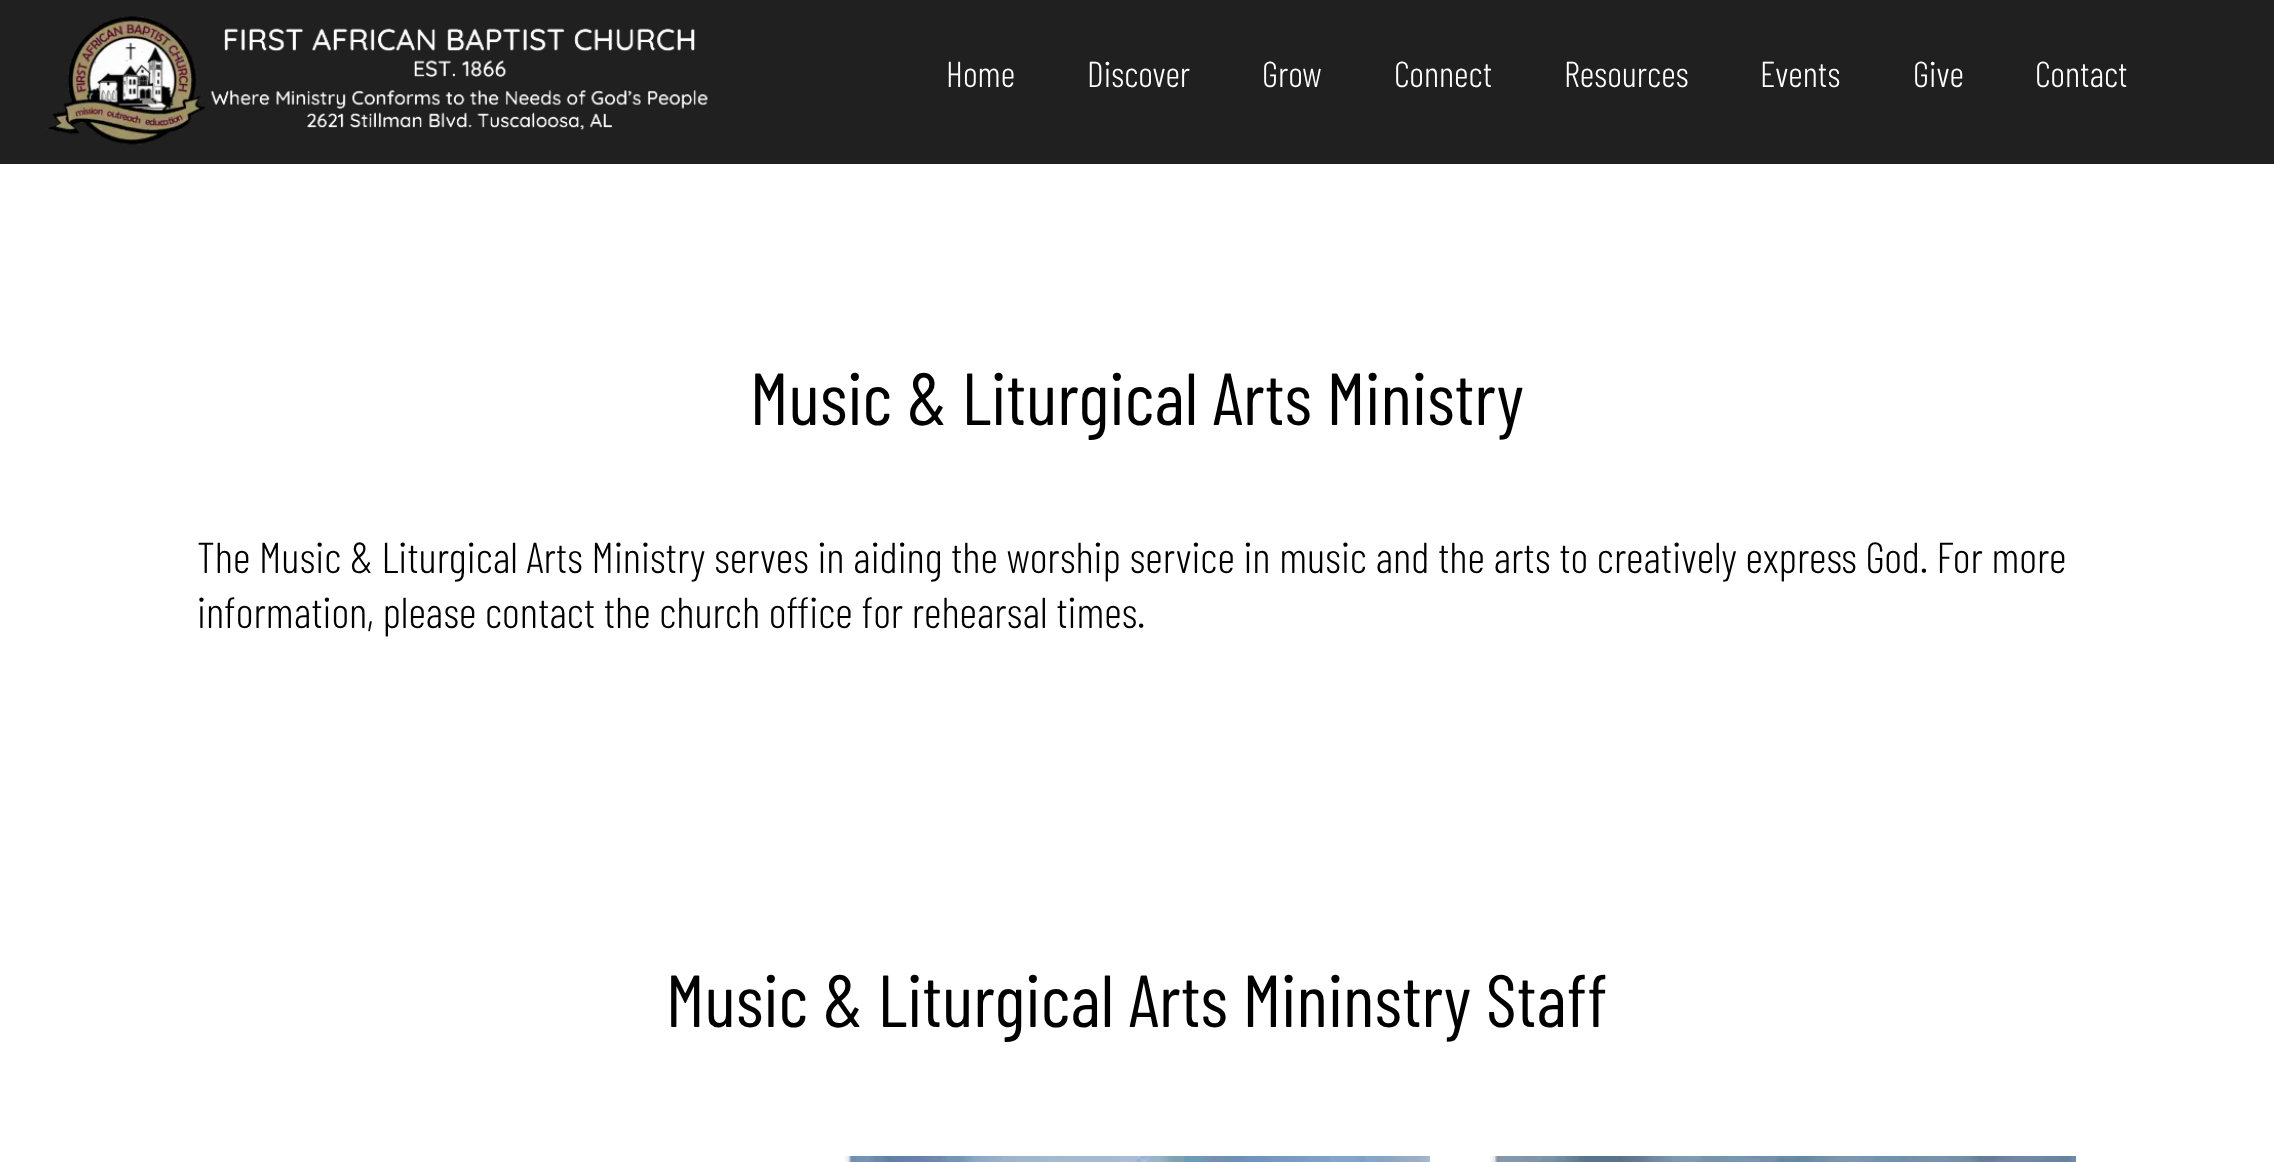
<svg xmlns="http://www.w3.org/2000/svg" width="2274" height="1162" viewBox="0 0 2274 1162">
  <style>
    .t1 { font: 300 36px Barlow Condensed; fill: #fff; }
    .t2 { font: 73.75px Barlow Condensed; fill: #000; }
    .t3 { font: 300 43.4px Barlow Condensed; fill: #000; }
  </style>
  <rect width="100%" height="100%" fill="#fff"/>
  <rect x="0" y="0" width="2274" height="164" fill="#202020"/>
  <image x="46" y="16" width="662" height="129" href="images/1.png"/>
  <text x="946" y="87" class="t1">Home</text>
  <text x="1087" y="87" class="t1">Discover</text>
  <text x="1262" y="87" class="t1">Grow</text>
  <text x="1394" y="87" class="t1">Connect</text>
  <text x="1564" y="87" class="t1">Resources</text>
  <text x="1760" y="87" class="t1">Events</text>
  <text x="1913" y="87" class="t1">Give</text>
  <text x="2035" y="87" class="t1">Contact</text>
  <text x="750" y="425" class="t2">Music &amp; Liturgical Arts Ministry</text>
  <text x="197" y="573" class="t3">The Music &amp; Liturgical Arts Ministry serves in aiding the worship service in music and the arts to creatively express God. For more</text>
  <text x="197" y="628" class="t3">information, please contact the church office for rehearsal times.</text>
  <text x="666" y="1027" class="t2">Music &amp; Liturgical Arts Mininstry Staff</text>
  <image x="844" y="1156" width="586" height="6" href="images/2.png"/>
  <image x="1490" y="1156" width="586" height="6" href="images/3.png"/>
</svg>
